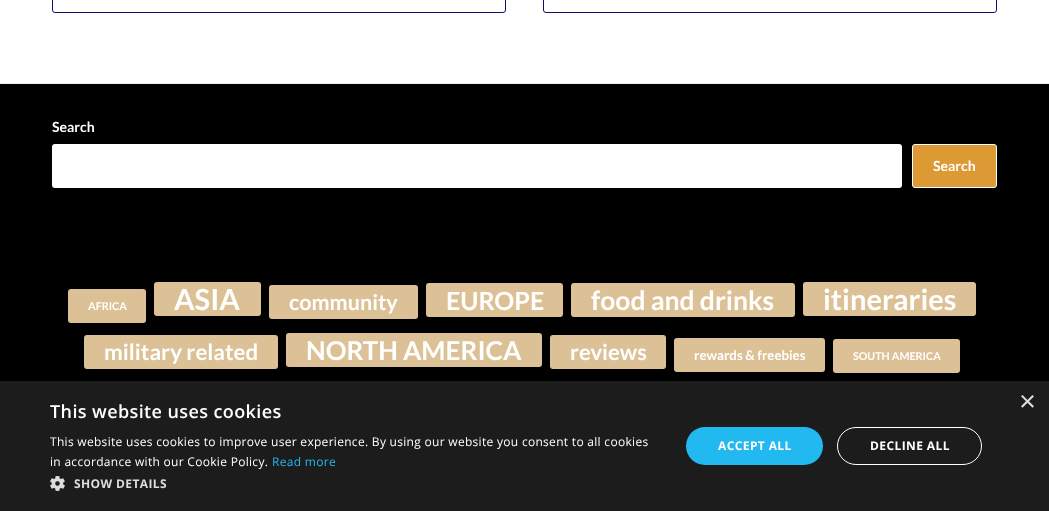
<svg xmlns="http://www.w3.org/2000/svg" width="1049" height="511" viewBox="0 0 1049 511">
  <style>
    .t1 { font: bold 14px Lato; fill: #fff; }
    .t2 { font: bold 10.75px Lato; fill: #fff; }
    .t3 { font: bold 29px Lato; fill: #fff; }
    .t4 { font: bold 21.5px Lato; fill: #fff; }
    .t5 { font: bold 25px Lato; fill: #fff; }
    .t6 { font: bold 26.5px Lato; fill: #fff; }
    .t7 { font: bold 22.25px Lato; fill: #fff; }
    .t8 { font: bold 26px Lato; fill: #fff; }
    .t9 { font: bold 22px Lato; fill: #fff; }
    .t10 { font: bold 13.25px Lato; fill: #fff; }
    .t11 { font: 29px Liberation Sans; fill: #ddd; }
    .t12 { font: 600 18px Open Sans; letter-spacing: 0.4px; fill: #fff; }
    .t13 { font: 12px Open Sans; letter-spacing: 0.3px; fill: #fff; }
    .t14 { font: 12px Open Sans; letter-spacing: 0.3px; fill: #22b8f0; }
    .t15 { font: bold 12px Open Sans; letter-spacing: 0.4px; fill: #ddd; }
    .t16 { font: bold 12px Open Sans; letter-spacing: 0.4px; fill: #fff; }
  </style>
  <rect width="100%" height="100%" fill="#fff"/>
  <rect x="52.5" y="-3.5" width="453" height="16" rx="2.5" fill="none" stroke="#0b1072"/>
  <rect x="543.5" y="-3.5" width="453" height="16" rx="2.5" fill="none" stroke="#0b1072"/>
  <rect x="0" y="84" width="1049" height="297" fill="#000"/>
  <rect x="0" y="83" width="1049" height="1" fill="#efefef"/>
  <text x="52" y="132" class="t1">Search</text>
  <rect x="52" y="144" width="850" height="44" rx="3" fill="#fff"/>
  <rect x="912.5" y="144.5" width="84" height="43" rx="2.5" fill="#d93" stroke="#fff"/>
  <text x="933" y="171" class="t1">Search</text>
  <rect x="68" y="289" width="78" height="34" rx="3" fill="#ddc196"/>
  <text x="88" y="310" class="t2">AFRICA</text>
  <rect x="154" y="282" width="107" height="34" rx="3" fill="#ddc196"/>
  <text x="174" y="310" class="t3">ASIA</text>
  <rect x="269" y="285" width="149" height="34" rx="3" fill="#ddc196"/>
  <text x="289" y="310" class="t4">community</text>
  <rect x="426" y="283" width="137" height="34" rx="3" fill="#ddc196"/>
  <text x="446" y="310" class="t5">EUROPE</text>
  <rect x="571" y="283" width="224" height="34" rx="3" fill="#ddc196"/>
  <text x="591" y="310" class="t6">food and drinks</text>
  <rect x="803" y="282" width="173" height="34" rx="3" fill="#ddc196"/>
  <text x="823" y="310" class="t3">itineraries</text>
  <rect x="84" y="335" width="194" height="34" rx="3" fill="#ddc196"/>
  <text x="104" y="360" class="t7">military related</text>
  <rect x="286" y="333" width="256" height="34" rx="3" fill="#ddc196"/>
  <text x="306" y="360" class="t8">NORTH AMERICA</text>
  <rect x="550" y="335" width="116" height="34" rx="3" fill="#ddc196"/>
  <text x="570" y="360" class="t9">reviews</text>
  <rect x="674" y="338" width="151" height="34" rx="3" fill="#ddc196"/>
  <text x="694" y="360" class="t10">rewards &amp; freebies</text>
  <rect x="833" y="339" width="127" height="34" rx="3" fill="#ddc196"/>
  <text x="853" y="360" class="t2">SOUTH AMERICA</text>
  <rect x="0" y="381" width="1049" height="130" fill="#1c1c1c"/>
  <text x="1019" y="411" class="t11">×</text>
  <text x="50" y="418" class="t12">This website uses cookies</text>
  <text x="50" y="446" class="t13">This website uses cookies to improve user experience. By using our website you consent to all cookies</text>
  <text x="50" y="466" class="t13">in accordance with our Cookie Policy.</text>
  <text x="272" y="466" class="t14">Read more</text>
  <image x="50" y="476" width="15" height="15" href="images/1.png"/>
  <text x="74" y="488" class="t15">SHOW DETAILS</text>
  <rect x="686" y="427" width="137" height="38" rx="19" fill="#22b8f0"/>
  <text x="718" y="450" class="t16">ACCEPT ALL</text>
  <rect x="837.5" y="427.5" width="144" height="37" rx="18.5" fill="none" stroke="#fff"/>
  <text x="870" y="450" class="t16">DECLINE ALL</text>
</svg>
